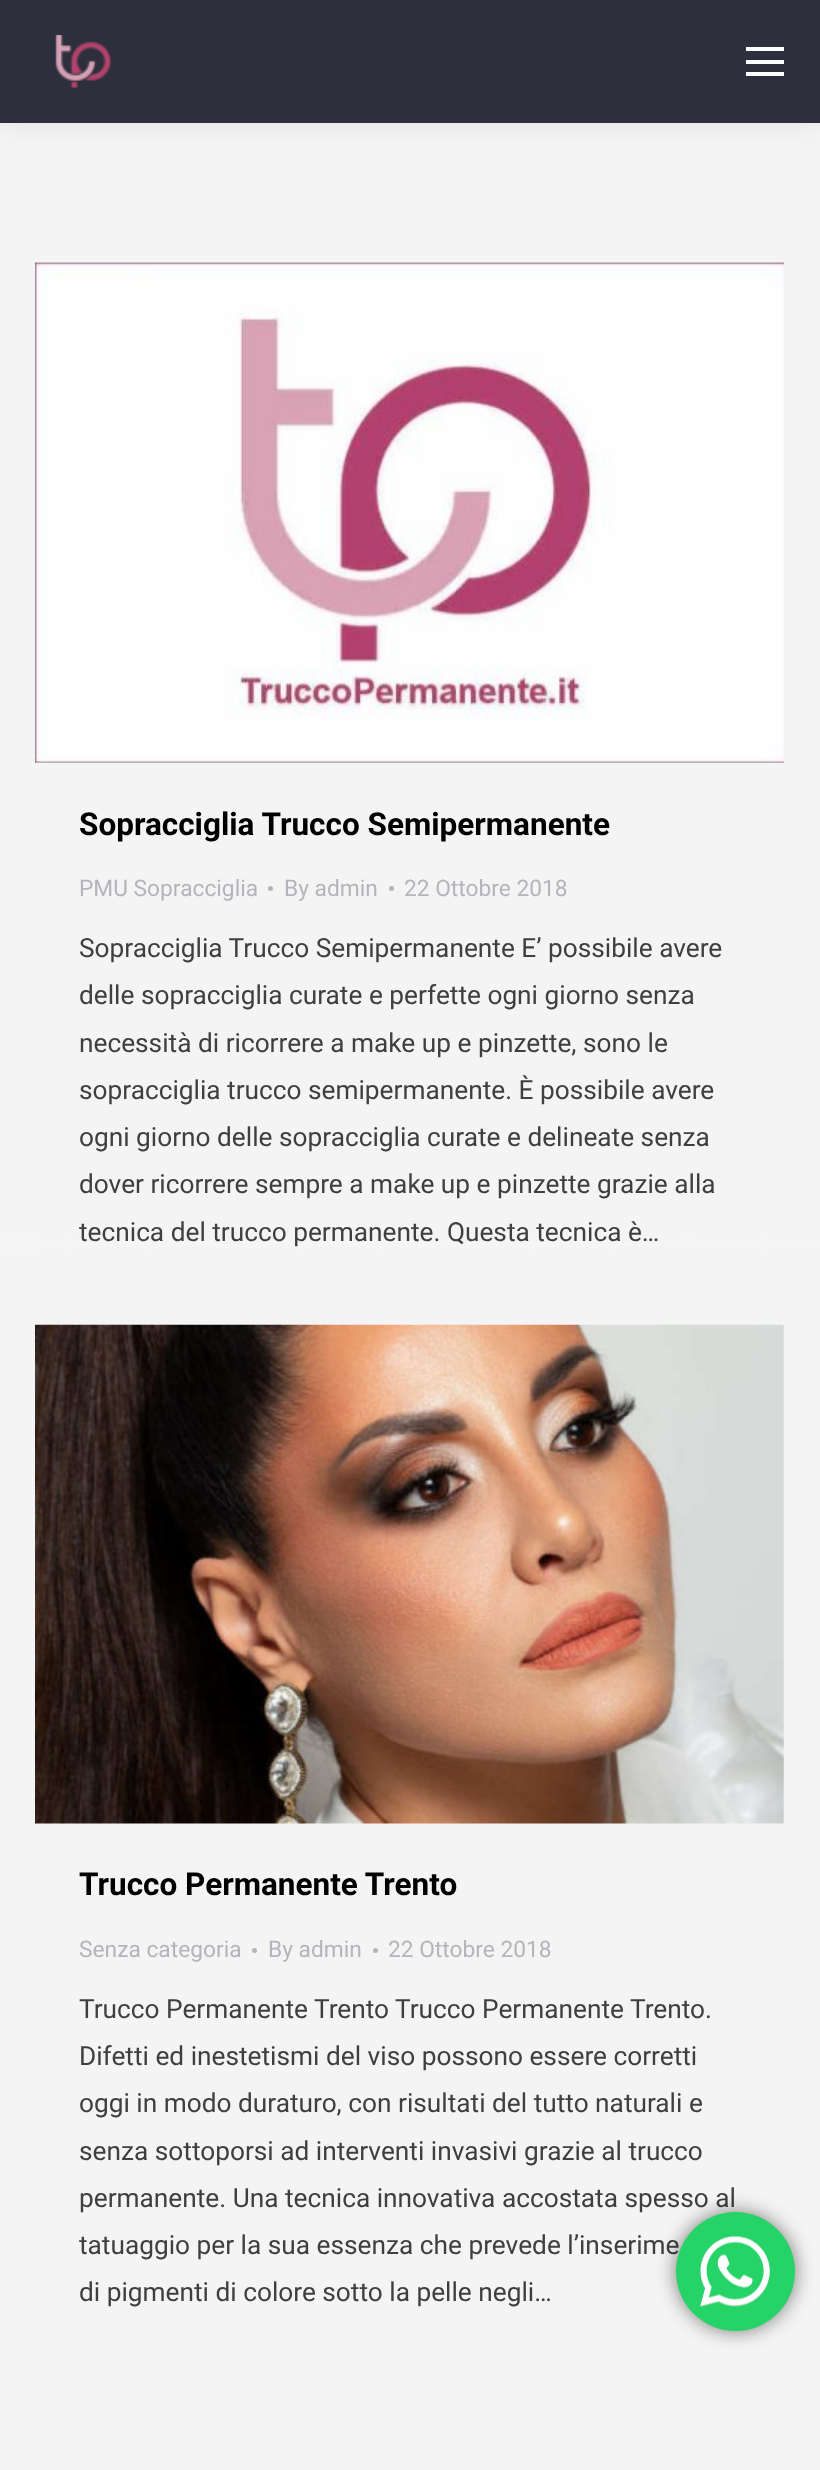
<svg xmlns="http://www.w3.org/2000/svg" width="820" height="2470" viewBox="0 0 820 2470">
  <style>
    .t1 { font: bold 31.5px Roboto; fill: #000; }
    .t2 { font: 22.75px Roboto; fill: #b4b5bb; }
    .t3 { font: 26.25px Roboto; fill: #3f3f3f; }
  </style>
  <rect width="100%" height="100%" fill="#f5f5f5"/>
  <image x="0" y="123" width="820" height="2347" href="images/1.png"/>
  <rect x="-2" y="-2" width="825" height="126" fill="#00000012" filter="blur(13px)"/>
  <rect x="0" y="0" width="820" height="123" fill="#2d2f3c"/>
  <image x="55" y="35" width="56" height="53" href="images/2.png"/>
  <rect x="746" y="47" width="38" height="4" fill="#fff"/>
  <rect x="746" y="60" width="38" height="4" fill="#fff"/>
  <rect x="746" y="72" width="38" height="4" fill="#fff"/>
  <image x="35" y="262" width="749" height="501" href="images/3.png"/>
  <text x="79" y="835" class="t1">Sopracciglia Trucco Semipermanente</text>
  <text x="79" y="896" class="t2">PMU Sopracciglia</text>
  <circle cx="270.5" cy="888.5" r="2.5" fill="#b4b5bb"/>
  <text x="284" y="896" class="t2">By admin</text>
  <circle cx="391.5" cy="888.5" r="2.5" fill="#b4b5bb"/>
  <text x="404" y="896" class="t2">22 Ottobre 2018</text>
  <text x="79" y="957" class="t3">Sopracciglia Trucco Semipermanente E’ possibile avere</text>
  <text x="79" y="1004" class="t3">delle sopracciglia curate e perfette ogni giorno senza</text>
  <text x="79" y="1052" class="t3">necessità di ricorrere a make up e pinzette, sono le</text>
  <text x="79" y="1099" class="t3">sopracciglia trucco semipermanente. È possibile avere</text>
  <text x="79" y="1146" class="t3">ogni giorno delle sopracciglia curate e delineate senza</text>
  <text x="79" y="1193" class="t3">dover ricorrere sempre a make up e pinzette grazie alla</text>
  <text x="79" y="1241" class="t3">tecnica del trucco permanente. Questa tecnica è…</text>
  <image x="35" y="1324" width="749" height="500" href="images/4.png"/>
  <text x="79" y="1895" class="t1">Trucco Permanente Trento</text>
  <text x="79" y="1957" class="t2">Senza categoria</text>
  <circle cx="254.5" cy="1950.5" r="2.5" fill="#b4b5bb"/>
  <text x="268" y="1957" class="t2">By admin</text>
  <circle cx="375.5" cy="1950.5" r="2.5" fill="#b4b5bb"/>
  <text x="388" y="1957" class="t2">22 Ottobre 2018</text>
  <text x="79" y="2018" class="t3">Trucco Permanente Trento Trucco Permanente Trento.</text>
  <text x="79" y="2065" class="t3">Difetti ed inestetismi del viso possono essere corretti</text>
  <text x="79" y="2112" class="t3">oggi in modo duraturo, con risultati del tutto naturali e</text>
  <text x="79" y="2160" class="t3">senza sottoporsi ad interventi invasivi grazie al trucco</text>
  <text x="79" y="2207" class="t3">permanente. Una tecnica innovativa accostata spesso al</text>
  <text x="79" y="2254" class="t3">tatuaggio per la sua essenza che prevede l’inserime</text>
  <text x="79" y="2301" class="t3">di pigmenti di colore sotto la pelle negli…</text>
  <rect x="676" y="2212" width="119" height="119" rx="59.5" fill="#00000080" filter="blur(9.5px)"/>
  <circle cx="735.5" cy="2271.5" r="59.5" fill="#25d366"/>
  <image x="700" y="2236" width="70" height="71" href="images/5.png"/>
</svg>
